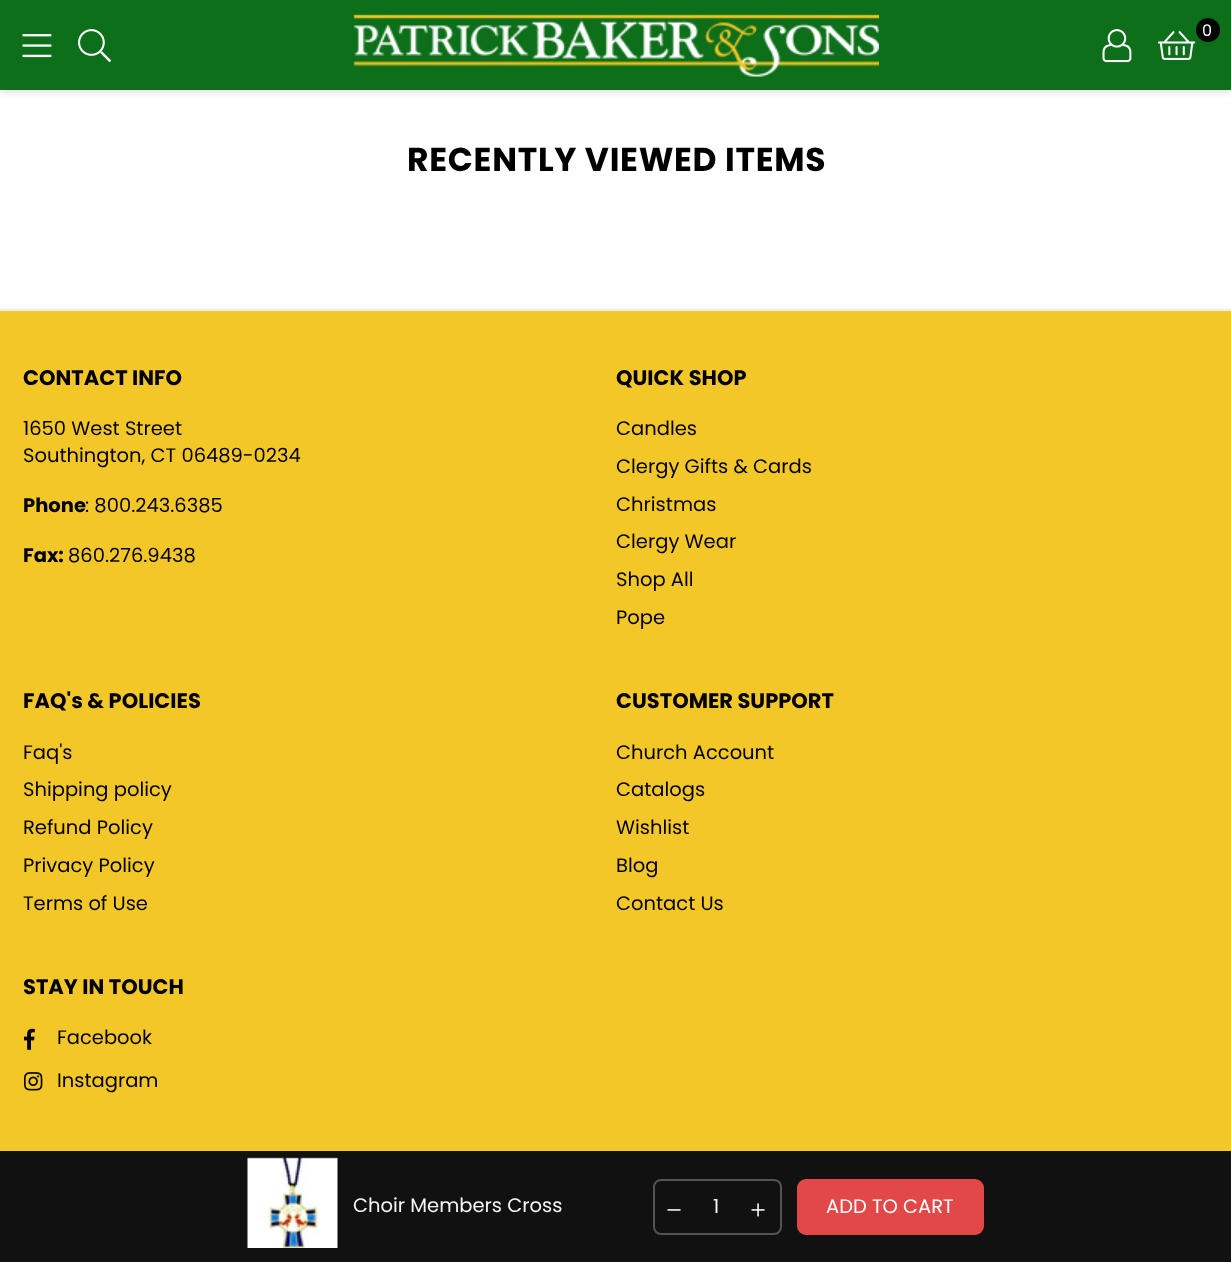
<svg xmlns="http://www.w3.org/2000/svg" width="1231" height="1262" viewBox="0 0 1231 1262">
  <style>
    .t1 { font: 16px Poppins; fill: #fff; }
    .t2 { font: bold 33px Poppins; letter-spacing: 0.7px; fill: #000; }
    .t3 { font: 19.5px Poppins; fill: #f5f5f5; }
    .t4 { font: 19.5px Poppins; fill: #fff; }
    .t5 { font: bold 21px Poppins; fill: #000; }
    .t6 { font: 19.5px Poppins; fill: #000; }
    .t7 { font: bold 19.5px Poppins; fill: #000; }
  </style>
  <rect width="100%" height="100%" fill="#fff"/>
  <rect x="0" y="0" width="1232" height="90" fill="#00000033" filter="blur(5px)"/>
  <rect x="0" y="0" width="1231" height="90" fill="#0d6f1a"/>
  <image x="22" y="34" width="30" height="24" href="images/1.png"/>
  <image x="78" y="29" width="33" height="33" href="images/2.png"/>
  <image x="353" y="14" width="526" height="63" href="images/3.png"/>
  <image x="1102" y="29" width="30" height="34" href="images/4.png"/>
  <circle cx="1208" cy="30" r="12" fill="#030505"/>
  <text x="1202" y="36" class="t1">0</text>
  <image x="1158" y="31" width="38" height="29" href="images/5.png"/>
  <text x="407" y="171" class="t2">RECENTLY VIEWED ITEMS</text>
  <rect x="0" y="1151" width="1231" height="111" fill="#111"/>
  <image x="247" y="1157" width="91" height="91" href="images/6.png"/>
  <text x="353" y="1212" class="t3">Choir Members Cross</text>
  <rect x="654" y="1180" width="127" height="54" rx="7" fill="none" stroke="#535353" stroke-width="2"/>
  <image x="667" y="1209" width="14" height="2" href="images/7.png"/>
  <text x="713" y="1213" class="t3">1</text>
  <image x="751" y="1203" width="14" height="14" href="images/8.png"/>
  <rect x="797" y="1179" width="187" height="56" rx="9" fill="#e34848"/>
  <text x="826" y="1213" class="t4">ADD TO CART</text>
  <rect x="0" y="311" width="1231" height="840" fill="#f3c727"/>
  <rect x="0" y="309" width="1231" height="2" fill="#eee"/>
  <text x="23" y="385" class="t5">CONTACT INFO</text>
  <text x="23" y="435" class="t6">1650 West Street</text>
  <text x="23" y="462" class="t6">Southington, CT 06489-0234</text>
  <text x="23" y="512" class="t7">Phone</text>
  <text x="85" y="512" class="t6">: 800.243.6385</text>
  <text x="23" y="562" class="t7">Fax:</text>
  <text x="68" y="562" class="t6">860.276.9438</text>
  <text x="616" y="385" class="t5">QUICK SHOP</text>
  <text x="616" y="435" class="t6">Candles</text>
  <text x="616" y="473" class="t6">Clergy Gifts &amp; Cards</text>
  <text x="616" y="511" class="t6">Christmas</text>
  <text x="616" y="548" class="t6">Clergy Wear</text>
  <text x="616" y="586" class="t6">Shop All</text>
  <text x="616" y="624" class="t6">Pope</text>
  <text x="23" y="708" class="t5">FAQ's &amp; POLICIES</text>
  <text x="23" y="759" class="t6">Faq's</text>
  <text x="23" y="796" class="t6">Shipping policy</text>
  <text x="23" y="834" class="t6">Refund Policy</text>
  <text x="23" y="872" class="t6">Privacy Policy</text>
  <text x="23" y="910" class="t6">Terms of Use</text>
  <text x="616" y="708" class="t5">CUSTOMER SUPPORT</text>
  <text x="616" y="759" class="t6">Church Account</text>
  <text x="616" y="796" class="t6">Catalogs</text>
  <text x="616" y="834" class="t6">Wishlist</text>
  <text x="616" y="872" class="t6">Blog</text>
  <text x="616" y="910" class="t6">Contact Us</text>
  <text x="23" y="994" class="t5">STAY IN TOUCH</text>
  <image x="24" y="1028" width="11" height="22" href="images/9.png"/>
  <text x="57" y="1044" class="t6">Facebook</text>
  <image x="24" y="1072" width="19" height="19" href="images/10.png"/>
  <text x="57" y="1087" class="t6">Instagram</text>
</svg>
